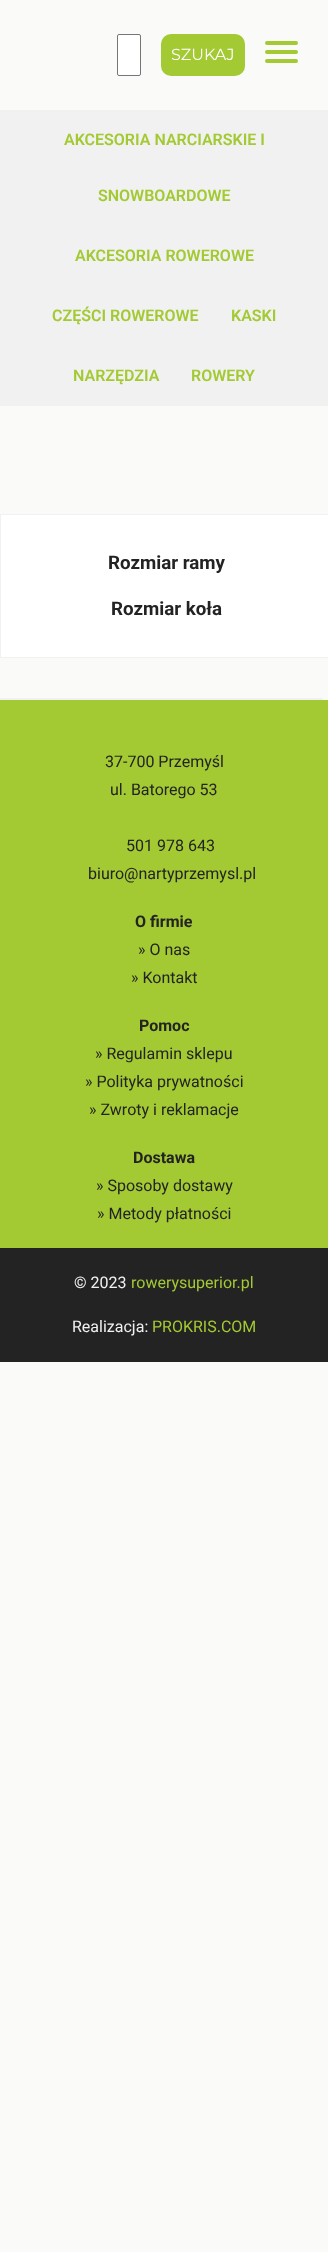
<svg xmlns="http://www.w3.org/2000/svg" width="328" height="2252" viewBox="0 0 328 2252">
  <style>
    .t1 { font: 16px Montserrat; fill: #fff; }
    .t2 { font: 600 16px Roboto; fill: #a3c933; }
    .t3 { font: bold 18.75px Roboto; fill: #232323; }
    .t4 { font: 16px Roboto; fill: #232323; }
    .t5 { font: bold 16px Roboto; fill: #232323; }
    .t6 { font: 16px Roboto; fill: #f1f1f1; }
    .t7 { font: 16px Roboto; fill: #a3c933; }
  </style>
  <rect width="100%" height="100%" fill="#fafaf8"/>
  <rect x="117.5" y="34.5" width="23" height="41" rx="1.5" fill="#fff" stroke="#767676"/>
  <rect x="161" y="34" width="84" height="42" rx="10" fill="#a3c933"/>
  <text x="171" y="60" class="t1">SZUKAJ</text>
  <rect x="265" y="41" width="33" height="4" rx="2" fill="#a3c933"/>
  <rect x="265" y="50" width="33" height="4" rx="2" fill="#a3c933"/>
  <rect x="265" y="59" width="33" height="4" rx="2" fill="#a3c933"/>
  <rect x="0" y="110" width="328" height="296" fill="#f1f1f1"/>
  <text x="64" y="145" class="t2">AKCESORIA NARCIARSKIE I</text>
  <text x="98" y="201" class="t2">SNOWBOARDOWE</text>
  <text x="75" y="261" class="t2">AKCESORIA ROWEROWE</text>
  <text x="52" y="321" class="t2">CZĘŚCI ROWEROWE</text>
  <text x="231" y="321" class="t2">KASKI</text>
  <text x="73" y="381" class="t2">NARZĘDZIA</text>
  <text x="191" y="381" class="t2">ROWERY</text>
  <rect x="0.5" y="514.5" width="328" height="143" fill="#fff" stroke="#f1f1f1"/>
  <text x="108" y="569" class="t3">Rozmiar ramy</text>
  <text x="111" y="615" class="t3">Rozmiar koła</text>
  <rect x="0" y="698" width="323" height="2" fill="#f1f1f1"/>
  <rect x="0" y="700" width="328" height="548" fill="#a3c933"/>
  <text x="105" y="767" class="t4">37-700 Przemyśl</text>
  <text x="110" y="795" class="t4">ul. Batorego 53</text>
  <text x="126" y="851" class="t4">501 978 643</text>
  <text x="88" y="879" class="t4">biuro@nartyprzemysl.pl</text>
  <text x="135" y="927" class="t5">O firmie</text>
  <text x="138" y="955" class="t4">» O nas</text>
  <text x="131" y="983" class="t4">» Kontakt</text>
  <text x="139" y="1031" class="t5">Pomoc</text>
  <text x="95" y="1059" class="t4">» Regulamin sklepu</text>
  <text x="85" y="1087" class="t4">» Polityka prywatności</text>
  <text x="89" y="1115" class="t4">» Zwroty i reklamacje</text>
  <text x="133" y="1163" class="t5">Dostawa</text>
  <text x="96" y="1191" class="t4">» Sposoby dostawy</text>
  <text x="97" y="1219" class="t4">» Metody płatności</text>
  <rect x="0" y="1248" width="328" height="114" fill="#232323"/>
  <text x="74" y="1288" class="t6">© 2023</text>
  <text x="131" y="1288" class="t7">rowerysuperior.pl</text>
  <text x="72" y="1332" class="t6">Realizacja:</text>
  <text x="152" y="1332" class="t7">PROKRIS.COM</text>
</svg>
